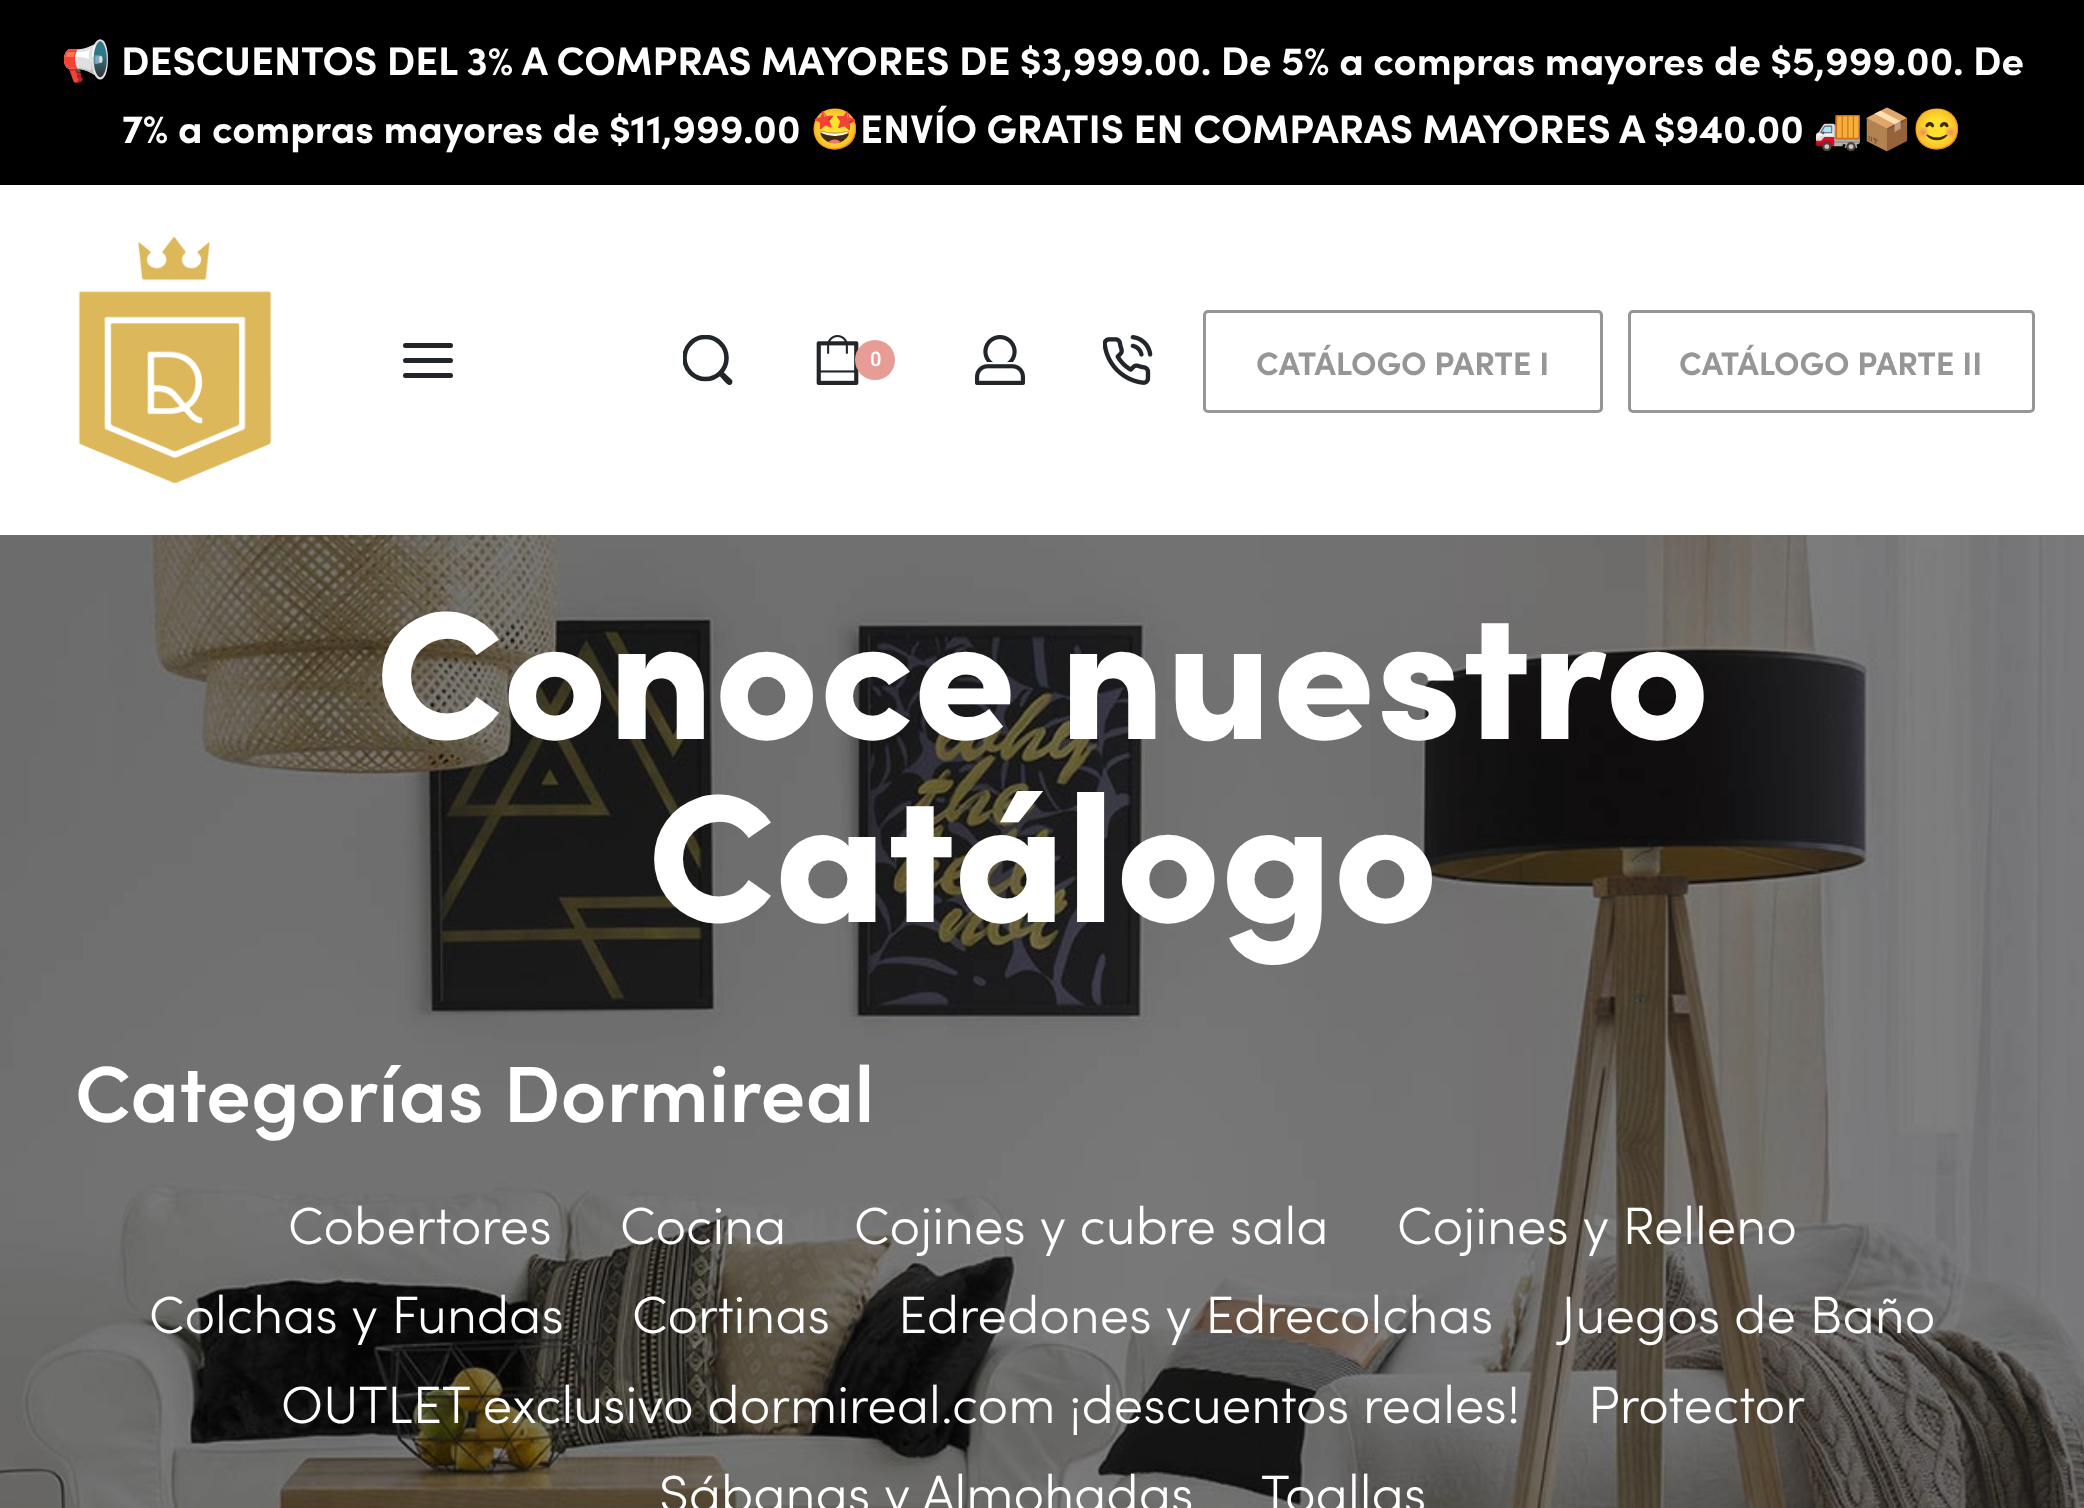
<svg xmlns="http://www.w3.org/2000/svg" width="2084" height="1508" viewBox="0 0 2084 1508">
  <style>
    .t1 { font: bold 40px Noto Color Emoji; fill: #fff; }
    .t2 { font: bold 40px Sofia; fill: #fff; }
    .t3 { font: 600 20px Roboto; fill: #fff; }
    .t4 { font: bold 32.5px Sofia; fill: #969696; }
    .t5 { font: 900 182.5px Sofia; fill: #fff; }
    .t6 { font: 600 80px Sofia; fill: #fff; }
    .t7 { font: 300 52.5px Sofia; fill: #fff; }
  </style>
  <defs>
    <clipPath id="clip1"><rect x="683" y="335" width="50" height="50"/></clipPath>
  </defs>
  <rect width="100%" height="100%" fill="#fff"/>
  <rect x="0" y="0" width="2084" height="185" fill="#000"/>
  <text x="61" y="75" class="t1">📢</text>
  <text x="121" y="75" class="t2">DESCUENTOS DEL 3% A COMPRAS MAYORES DE $3,999.00. De 5% a compras mayores de $5,999.00. De</text>
  <text x="122" y="143" class="t2">7% a compras mayores de $11,999.00</text>
  <text x="810" y="143" class="t1">🤩</text>
  <text x="860" y="143" class="t2">ENVÍO GRATIS EN COMPARAS MAYORES A $940.00</text>
  <text x="1813" y="143" class="t1">🚚📦😊</text>
  <image x="78" y="236" width="194" height="248" href="images/1.png"/>
  <rect x="403" y="343" width="50" height="5" rx="2.5" fill="#22262a"/>
  <rect x="403" y="358" width="50" height="5" rx="2.5" fill="#22262a"/>
  <rect x="403" y="373" width="50" height="5" rx="2.5" fill="#22262a"/>
  <g clip-path="url(#clip1)">
    <circle cx="705.5" cy="358" r="21" fill="none" stroke="#22262a" stroke-width="4.6"/>
  </g>
  <path d="M724 372.5L732 380C732.5 381 732.5 382.5 732 383.5C729.5 387 726.5 383.5 724.5 381.5L720 376.5C717 374 721.5 369.5 724 372.5Z" fill="#22262a"/>
  <image x="816" y="335" width="43" height="50" href="images/2.png"/>
  <circle cx="875" cy="360" r="20" fill="#e79c96"/>
  <text x="870" y="366" class="t3">0</text>
  <image x="975" y="335" width="50" height="50" href="images/3.png"/>
  <image x="1103" y="335" width="50" height="50" href="images/4.png"/>
  <rect x="1204.5" y="311.5" width="397" height="100" rx="3.5" fill="none" stroke="#969696" stroke-width="3"/>
  <text x="1256" y="375" class="t4">CATÁLOGO PARTE I</text>
  <rect x="1629.5" y="311.5" width="404" height="100" rx="3.5" fill="none" stroke="#969696" stroke-width="3"/>
  <text x="1679" y="375" class="t4">CATÁLOGO PARTE II</text>
  <image x="0" y="535" width="2084" height="973" href="images/5.png"/>
  <text x="375" y="739" class="t5">Conoce nuestro</text>
  <text x="647" y="922" class="t5">Catálogo</text>
  <text x="75" y="1122" class="t6">Categorías Dormireal</text>
  <text x="288" y="1244" class="t7">Cobertores</text>
  <text x="620" y="1244" class="t7">Cocina</text>
  <text x="854" y="1244" class="t7">Cojines y cubre sala</text>
  <text x="1397" y="1244" class="t7">Cojines y Relleno</text>
  <text x="149" y="1333" class="t7">Colchas y Fundas</text>
  <text x="632" y="1333" class="t7">Cortinas</text>
  <text x="898" y="1333" class="t7">Edredones y Edrecolchas</text>
  <text x="1561" y="1333" class="t7">Juegos de Baño</text>
  <text x="281" y="1423" class="t7">OUTLET exclusivo dormireal.com ¡descuentos reales!</text>
  <text x="1588" y="1423" class="t7">Protector</text>
  <text x="659" y="1512" class="t7">Sábanas y Almohadas</text>
  <text x="1261" y="1512" class="t7">Toallas</text>
</svg>
